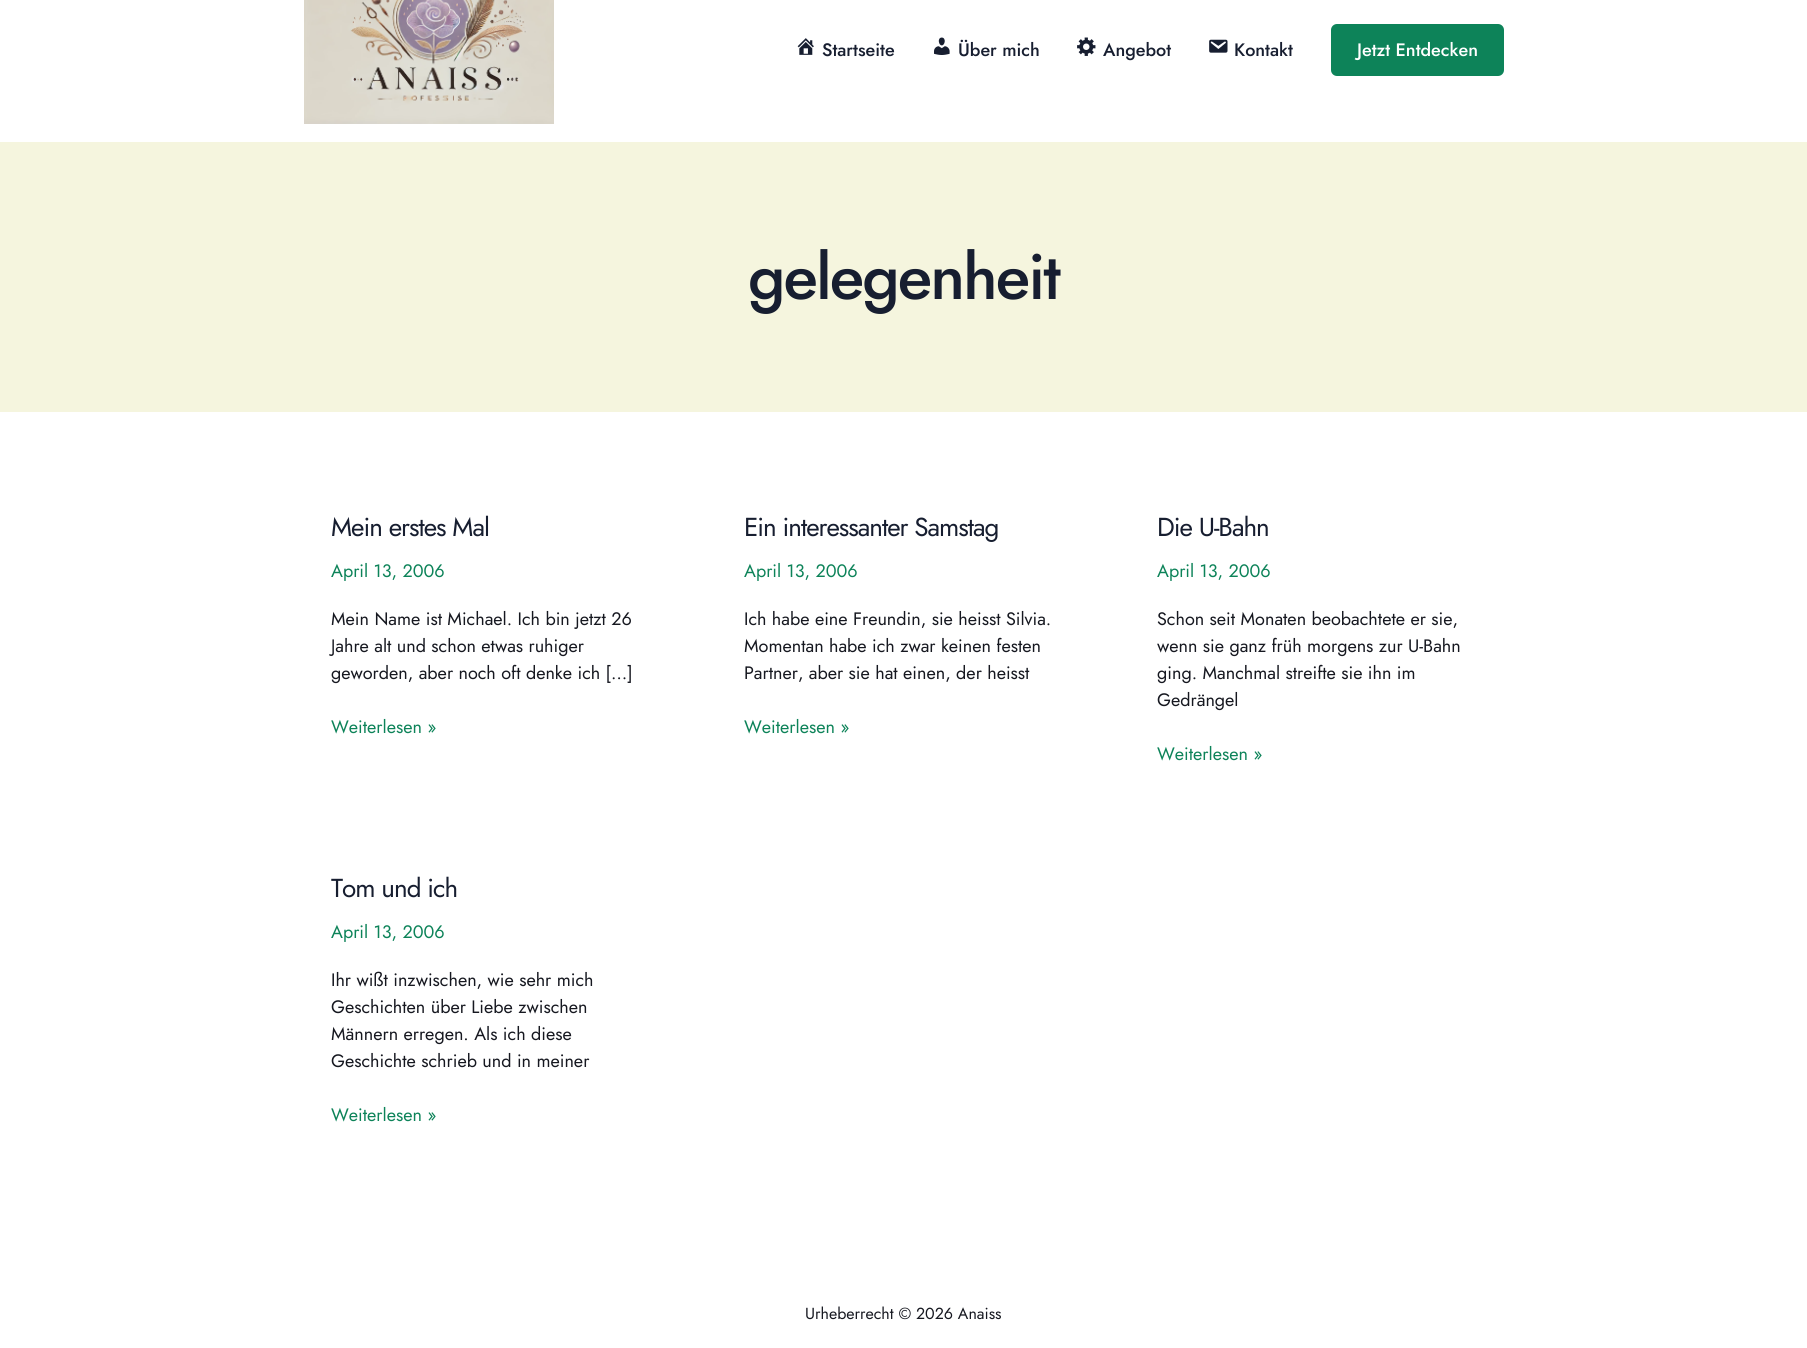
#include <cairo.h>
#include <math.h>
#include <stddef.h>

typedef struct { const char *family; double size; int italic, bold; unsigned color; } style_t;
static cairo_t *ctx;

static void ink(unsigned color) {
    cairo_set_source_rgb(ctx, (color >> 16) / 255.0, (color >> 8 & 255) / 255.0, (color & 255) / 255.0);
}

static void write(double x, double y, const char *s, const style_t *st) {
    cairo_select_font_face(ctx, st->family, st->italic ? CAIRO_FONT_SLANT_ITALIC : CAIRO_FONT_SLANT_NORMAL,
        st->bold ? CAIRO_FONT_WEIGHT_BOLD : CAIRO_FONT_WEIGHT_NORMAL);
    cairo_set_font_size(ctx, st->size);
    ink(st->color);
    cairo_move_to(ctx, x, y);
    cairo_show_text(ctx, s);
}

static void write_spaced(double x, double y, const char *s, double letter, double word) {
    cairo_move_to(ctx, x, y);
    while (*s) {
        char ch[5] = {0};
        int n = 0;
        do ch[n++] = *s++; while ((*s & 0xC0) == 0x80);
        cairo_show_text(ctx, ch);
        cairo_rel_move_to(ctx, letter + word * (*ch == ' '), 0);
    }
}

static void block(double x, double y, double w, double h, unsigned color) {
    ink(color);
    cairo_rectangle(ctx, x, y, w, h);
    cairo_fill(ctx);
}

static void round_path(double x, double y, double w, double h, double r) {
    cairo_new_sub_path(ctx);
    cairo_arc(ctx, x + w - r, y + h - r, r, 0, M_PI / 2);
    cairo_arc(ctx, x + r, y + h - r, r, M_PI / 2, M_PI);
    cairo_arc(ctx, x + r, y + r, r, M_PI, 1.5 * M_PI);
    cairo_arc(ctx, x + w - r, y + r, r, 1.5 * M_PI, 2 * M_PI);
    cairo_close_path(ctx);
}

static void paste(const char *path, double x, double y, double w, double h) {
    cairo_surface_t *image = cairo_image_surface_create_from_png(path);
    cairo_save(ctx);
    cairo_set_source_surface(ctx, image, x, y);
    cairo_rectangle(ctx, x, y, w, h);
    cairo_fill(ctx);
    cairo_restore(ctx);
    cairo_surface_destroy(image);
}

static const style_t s1 = {"Jost Medium", 18, 0, 0, 0x171e30};
static const style_t s2 = {"Jost Medium", 18, 0, 0, 0xffffff};
static const style_t s3 = {"Jost", 18, 0, 0, 0x0d8359};
static const style_t s4 = {"Jost", 18, 0, 0, 0x161820};
static const style_t s5 = {"Jost", 16, 0, 0, 0x161820};

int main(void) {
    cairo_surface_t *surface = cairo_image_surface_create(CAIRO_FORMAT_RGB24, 1807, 1348);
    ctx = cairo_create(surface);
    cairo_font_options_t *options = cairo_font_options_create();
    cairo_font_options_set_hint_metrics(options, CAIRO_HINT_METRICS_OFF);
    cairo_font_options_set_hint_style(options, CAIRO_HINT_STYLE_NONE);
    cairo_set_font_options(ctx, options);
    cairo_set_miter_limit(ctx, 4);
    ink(0xffffff);
    cairo_paint(ctx);
    paste("pic1.png", 304, 0, 250, 124);
    paste("pic2.png", 797, 38, 17, 17);
    write(822, 56, "Startseite", &s1);
    paste("pic3.png", 934, 37, 16, 18);
    write(958, 56, "Über mich", &s1);
    paste("pic4.png", 1077, 37, 19, 19);
    write(1103, 56, "Angebot", &s1);
    paste("pic5.png", 1209, 39, 19, 14);
    write(1234, 56, "Kontakt", &s1);
    ink(0x0d8359);
    round_path(1332, 25, 171, 50, 5);
    cairo_fill_preserve(ctx);
    cairo_stroke(ctx);
    write(1357, 56, "Jetzt Entdecken", &s2);
    block(0, 142, 1807, 270, 0xf5f5de);
    cairo_set_font_size(ctx, 64);
    ink(0x171e30);
    write_spaced(748, 299, "gelegenheit", -2, 0);
    cairo_select_font_face(ctx, "Jost", CAIRO_FONT_SLANT_NORMAL, CAIRO_FONT_WEIGHT_NORMAL);
    cairo_set_font_size(ctx, 26);
    write_spaced(331, 536, "Mein erstes Mal", -1, 0);
    write(331, 577, "April 13, 2006", &s3);
    write(331, 625, "Mein Name ist Michael. Ich bin jetzt 26", &s4);
    write(331, 652, "Jahre alt und schon etwas ruhiger", &s4);
    write(331, 679, "geworden, aber noch oft denke ich […]", &s4);
    write(331, 733, "Weiterlesen »", &s3);
    cairo_set_font_size(ctx, 26);
    ink(0x171e30);
    write_spaced(744, 536, "Ein interessanter Samstag", -1, 0);
    write(744, 577, "April 13, 2006", &s3);
    write(744, 625, "Ich habe eine Freundin, sie heisst Silvia.", &s4);
    write(744, 652, "Momentan habe ich zwar keinen festen", &s4);
    write(744, 679, "Partner, aber sie hat einen, der heisst", &s4);
    write(744, 733, "Weiterlesen »", &s3);
    cairo_set_font_size(ctx, 26);
    ink(0x171e30);
    write_spaced(1157, 536, "Die U-Bahn", -1, 0);
    write(1157, 577, "April 13, 2006", &s3);
    write(1157, 625, "Schon seit Monaten beobachtete er sie,", &s4);
    write(1157, 652, "wenn sie ganz früh morgens zur U-Bahn", &s4);
    write(1157, 679, "ging. Manchmal streifte sie ihn im", &s4);
    write(1157, 706, "Gedrängel", &s4);
    write(1157, 760, "Weiterlesen »", &s3);
    cairo_set_font_size(ctx, 26);
    ink(0x171e30);
    write_spaced(331, 897, "Tom und ich", -1, 0);
    write(331, 938, "April 13, 2006", &s3);
    write(331, 986, "Ihr wißt inzwischen, wie sehr mich", &s4);
    write(331, 1013, "Geschichten über Liebe zwischen", &s4);
    write(331, 1040, "Männern erregen. Als ich diese", &s4);
    write(331, 1067, "Geschichte schrieb und in meiner", &s4);
    write(331, 1121, "Weiterlesen »", &s3);
    write(805, 1319, "Urheberrecht © 2026 Anaiss", &s5);
    cairo_surface_write_to_png(surface, "screenshot.png");
    cairo_font_options_destroy(options);
    cairo_destroy(ctx);
    cairo_surface_destroy(surface);
    return 0;
}
